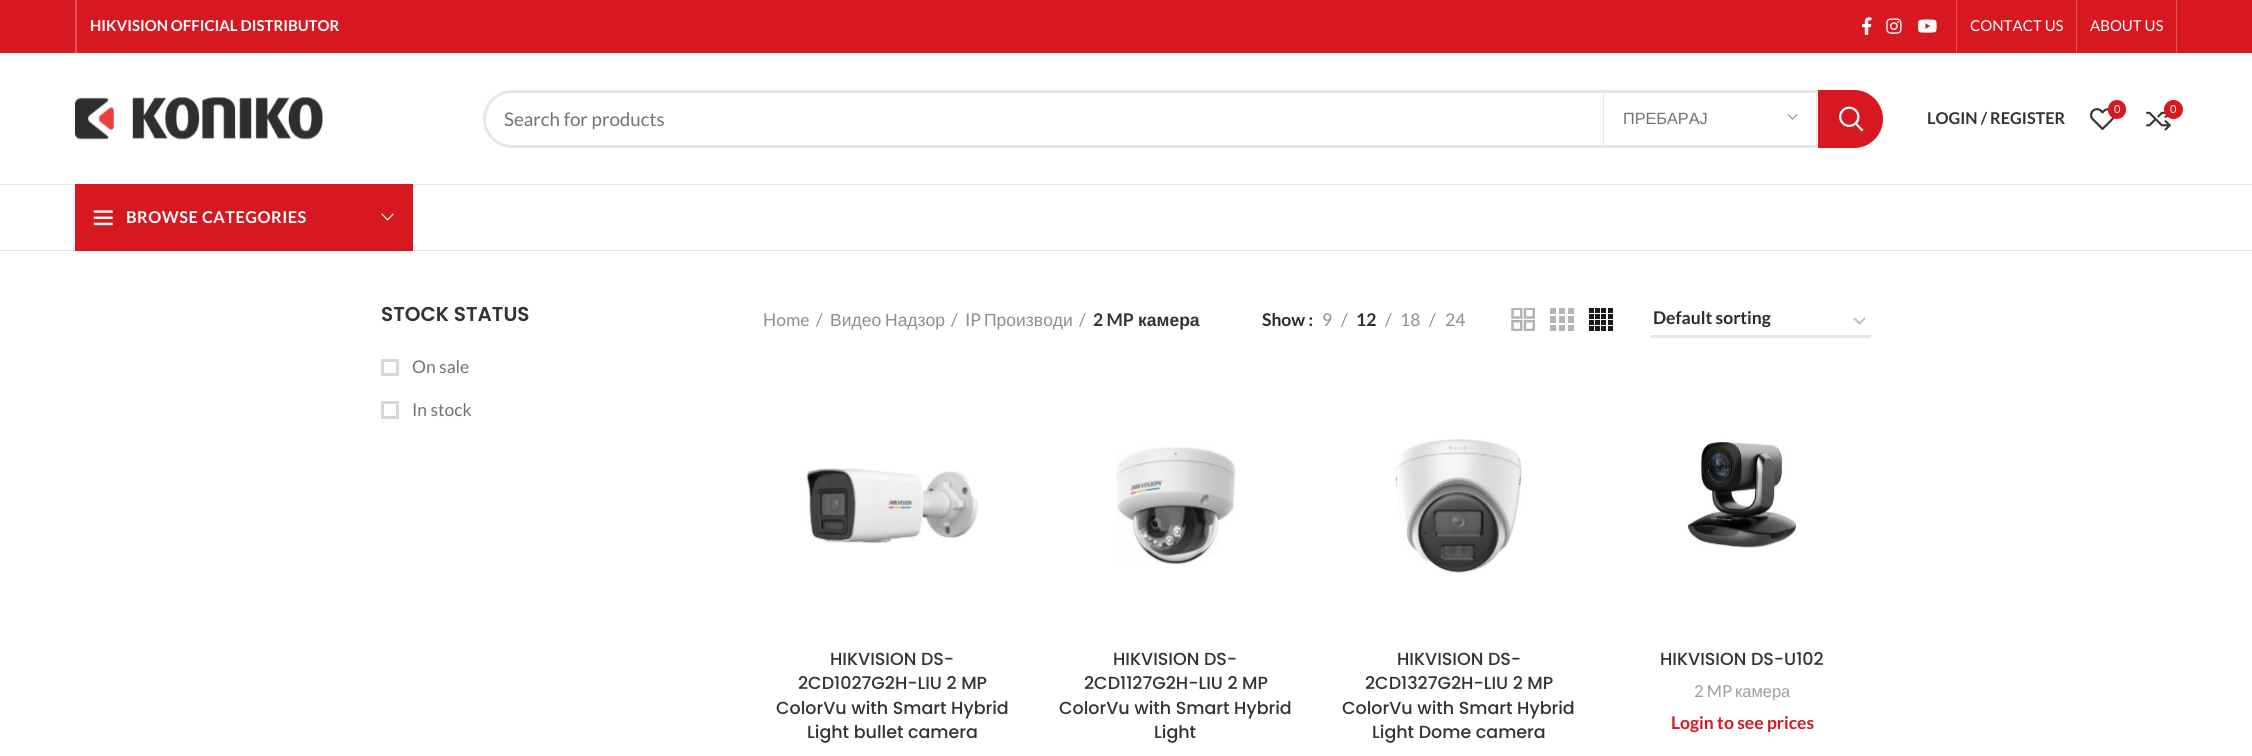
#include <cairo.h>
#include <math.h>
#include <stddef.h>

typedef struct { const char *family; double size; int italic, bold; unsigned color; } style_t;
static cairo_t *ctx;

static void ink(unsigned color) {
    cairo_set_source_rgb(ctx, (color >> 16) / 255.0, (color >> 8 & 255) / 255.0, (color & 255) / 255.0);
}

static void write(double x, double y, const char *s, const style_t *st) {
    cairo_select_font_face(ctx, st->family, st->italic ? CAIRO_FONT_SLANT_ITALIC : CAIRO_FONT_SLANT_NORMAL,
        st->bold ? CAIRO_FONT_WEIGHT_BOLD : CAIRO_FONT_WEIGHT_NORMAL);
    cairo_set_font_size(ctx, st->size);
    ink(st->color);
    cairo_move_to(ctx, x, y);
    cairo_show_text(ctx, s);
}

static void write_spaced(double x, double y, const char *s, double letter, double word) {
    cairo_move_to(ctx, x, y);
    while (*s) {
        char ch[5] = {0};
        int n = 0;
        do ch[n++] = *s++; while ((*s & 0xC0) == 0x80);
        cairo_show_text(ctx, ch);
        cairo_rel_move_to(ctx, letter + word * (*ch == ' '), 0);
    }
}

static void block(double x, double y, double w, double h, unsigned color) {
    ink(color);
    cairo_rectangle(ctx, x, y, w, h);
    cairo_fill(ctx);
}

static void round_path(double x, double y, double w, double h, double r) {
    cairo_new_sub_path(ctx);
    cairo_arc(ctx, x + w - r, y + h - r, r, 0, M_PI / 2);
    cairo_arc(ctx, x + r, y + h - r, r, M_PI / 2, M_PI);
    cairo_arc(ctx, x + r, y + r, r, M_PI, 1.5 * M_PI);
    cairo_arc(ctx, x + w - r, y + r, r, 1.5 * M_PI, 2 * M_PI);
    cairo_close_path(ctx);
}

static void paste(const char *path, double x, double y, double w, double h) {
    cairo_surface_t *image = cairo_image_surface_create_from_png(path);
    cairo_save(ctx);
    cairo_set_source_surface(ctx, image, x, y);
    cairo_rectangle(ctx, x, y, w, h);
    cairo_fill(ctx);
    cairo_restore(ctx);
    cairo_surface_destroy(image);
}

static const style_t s1 = {"Lato", 15, 0, 1, 0xffffff};
static const style_t s2 = {"Lato", 15, 0, 0, 0xffffff};
static const style_t s3 = {"Lato", 18.75, 0, 0, 0x727272};
static const style_t s4 = {"Liberation Sans", 16.25, 0, 0, 0x727272};
static const style_t s5 = {"Lato", 11, 0, 0, 0xffffff};
static const style_t s6 = {"Lato", 16.25, 0, 1, 0x333333};
static const style_t s7 = {"Poppins SemiBold", 20, 0, 0, 0x333333};
static const style_t s8 = {"Lato", 17.5, 0, 0, 0x727272};
static const style_t s9 = {"Lato", 17.5, 0, 0, 0x8e8e8e};
static const style_t s10 = {"Liberation Sans", 17.5, 0, 0, 0x8e8e8e};
static const style_t s11 = {"Lato", 17.5, 0, 1, 0x333333};
static const style_t s12 = {"Liberation Sans", 17.5, 0, 1, 0x333333};
static const style_t s13 = {"Lato", 17.5, 0, 1, 0x2d2a2a};
static const style_t s14 = {"Poppins Medium", 17.5, 0, 0, 0x333333};
static const style_t s15 = {"Lato", 16.5, 0, 0, 0x9e9e9e};
static const style_t s16 = {"Liberation Sans", 16.5, 0, 0, 0x9e9e9e};
static const style_t s17 = {"Lato", 17.5, 0, 1, 0xd71820};

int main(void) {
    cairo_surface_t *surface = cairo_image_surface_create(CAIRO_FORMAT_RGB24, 2252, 756);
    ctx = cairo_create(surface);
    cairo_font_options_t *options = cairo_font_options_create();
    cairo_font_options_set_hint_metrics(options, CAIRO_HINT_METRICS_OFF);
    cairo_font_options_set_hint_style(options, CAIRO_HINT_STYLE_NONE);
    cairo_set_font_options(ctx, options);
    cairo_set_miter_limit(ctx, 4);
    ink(0xffffff);
    cairo_paint(ctx);
    block(0, 0, 2252, 53, 0xd71820);
    block(75, 0, 2, 53, 0xe15258);
    write(90, 31, "HIKVISION OFFICIAL DISTRIBUTOR", &s1);
    paste("pic1.png", 1862, 17, 10, 18);
    paste("pic2.png", 1886, 18, 16, 16);
    paste("pic3.png", 1918, 19, 19, 14);
    block(1956, 0, 1, 53, 0xe15258);
    write(1970, 31, "CONTACT US", &s2);
    block(2076, 0, 1, 53, 0xe15258);
    write(2090, 31, "ABOUT US", &s2);
    block(2176, 0, 1, 53, 0xe15258);
    block(0, 184, 2252, 1, 0xe8e8e8);
    paste("pic4.png", 75, 97, 248, 43);
    round_path(484.5, 91.5, 1397, 55, 27.5);
    ink(0xe6e6e6);
    cairo_set_line_width(ctx, 3);
    cairo_stroke(ctx);
    write(504, 126, "Search for products", &s3);
    block(1816, 93, 1, 52, 0xe6e6e6);
    block(1603, 93, 1, 52, 0xe6e6e6);
    write(1623, 124, "ПРЕБАРАЈ", &s4);
    paste("pic5.png", 1787, 114, 11, 6);
    ink(0xd71820);
    cairo_new_path(ctx);
    cairo_move_to(ctx, 1818, 90);
    cairo_line_to(ctx, 1854, 90);
    cairo_curve_to(ctx, 1870, 90, 1883, 103, 1883, 119);
    cairo_curve_to(ctx, 1883, 135, 1870, 148, 1854, 148);
    cairo_line_to(ctx, 1818, 148);
    cairo_close_path(ctx);
    cairo_fill(ctx);
    paste("pic6.png", 1839, 106, 25, 26);
    paste("pic7.png", 2090, 108, 25, 22);
    round_path(2108, 100, 18, 19, 9);
    cairo_fill(ctx);
    write(2114, 113, "0", &s5);
    paste("pic8.png", 2146, 108, 26, 23);
    ink(0xd71820);
    cairo_arc(ctx, 2173.5, 109.5, 9.5, 0, 2 * M_PI);
    cairo_fill(ctx);
    write(2170, 113, "0", &s5);
    write(1927, 124, "LOGIN / REGISTER", &s6);
    block(0, 250, 2252, 1, 0xe8e8e8);
    block(75, 184, 338, 67, 0xd71820);
    paste("pic9.png", 93, 210, 20, 16);
    ink(0xffffff);
    write_spaced(126, 223, "BROWSE CATEGORIES", 0.5, 0);
    paste("pic10.png", 381, 213, 13, 8);
    write(381, 321, "STOCK STATUS", &s7);
    cairo_rectangle(ctx, 382.5, 360.5, 15, 14);
    ink(0xd8d8d8);
    cairo_stroke(ctx);
    write(412, 373, "On sale", &s8);
    cairo_rectangle(ctx, 382.5, 402.5, 15, 15);
    ink(0xd8d8d8);
    cairo_stroke(ctx);
    write(412, 416, "In stock", &s8);
    write(763, 326, "Home", &s9);
    write(816, 326, "/", &s9);
    cairo_select_font_face(ctx, "Liberation Sans", CAIRO_FONT_SLANT_NORMAL, CAIRO_FONT_WEIGHT_NORMAL);
    write_spaced(830, 326, "Видео Надзор", 0, -1);
    write(951, 326, "/", &s9);
    write(965, 326, "IP", &s9);
    write(984, 326, "Производи", &s10);
    write(1079, 326, "/", &s9);
    write(1093, 326, "2 MP", &s11);
    write(1138, 326, "камера", &s12);
    write(1262, 326, "Show :", &s13);
    write(1322, 326, "9", &s9);
    write(1341, 326, "/", &s9);
    write(1356, 326, "12", &s13);
    write(1385, 326, "/", &s9);
    write(1400, 326, "18", &s9);
    write(1429, 326, "/", &s9);
    write(1445, 326, "24", &s9);
    paste("pic11.png", 1511, 308, 24, 23);
    paste("pic12.png", 1550, 308, 24, 23);
    paste("pic13.png", 1589, 308, 24, 23);
    cairo_new_path(ctx);
    cairo_move_to(ctx, 1854, 318);
    cairo_line_to(ctx, 1859.5, 323.5);
    cairo_line_to(ctx, 1865, 318);
    ink(0xbbbbbb);
    cairo_set_line_width(ctx, 1.8);
    cairo_stroke(ctx);
    block(1650, 335, 221, 3, 0xe6e6e6);
    write(1653, 324, "Default sorting", &s13);
    paste("pic14.png", 806, 468, 172, 76);
    write(830, 665, "HIKVISION DS-", &s14);
    write(798, 689, "2CD1027G2H-LIU 2 MP", &s14);
    write(776, 714, "ColorVu with Smart Hybrid", &s14);
    write(807, 738, "Light bullet camera", &s14);
    paste("pic15.png", 1116, 446, 120, 120);
    write(1113, 665, "HIKVISION DS-", &s14);
    write(1084, 689, "2CD1127G2H-LIU 2 MP", &s14);
    write(1059, 714, "ColorVu with Smart Hybrid", &s14);
    write(1154, 738, "Light", &s14);
    paste("pic16.png", 1394, 439, 128, 134);
    write(1397, 665, "HIKVISION DS-", &s14);
    write(1365, 689, "2CD1327G2H-LIU 2 MP", &s14);
    write(1342, 714, "ColorVu with Smart Hybrid", &s14);
    write(1372, 738, "Light Dome camera", &s14);
    paste("pic17.png", 1687, 439, 111, 110);
    write(1660, 665, "HIKVISION DS-U102", &s14);
    write(1694, 697, "2 MP", &s15);
    write(1735, 697, "камера", &s16);
    write(1671, 729, "Login to see prices", &s17);
    cairo_surface_write_to_png(surface, "screenshot.png");
    cairo_font_options_destroy(options);
    cairo_destroy(ctx);
    cairo_surface_destroy(surface);
    return 0;
}
